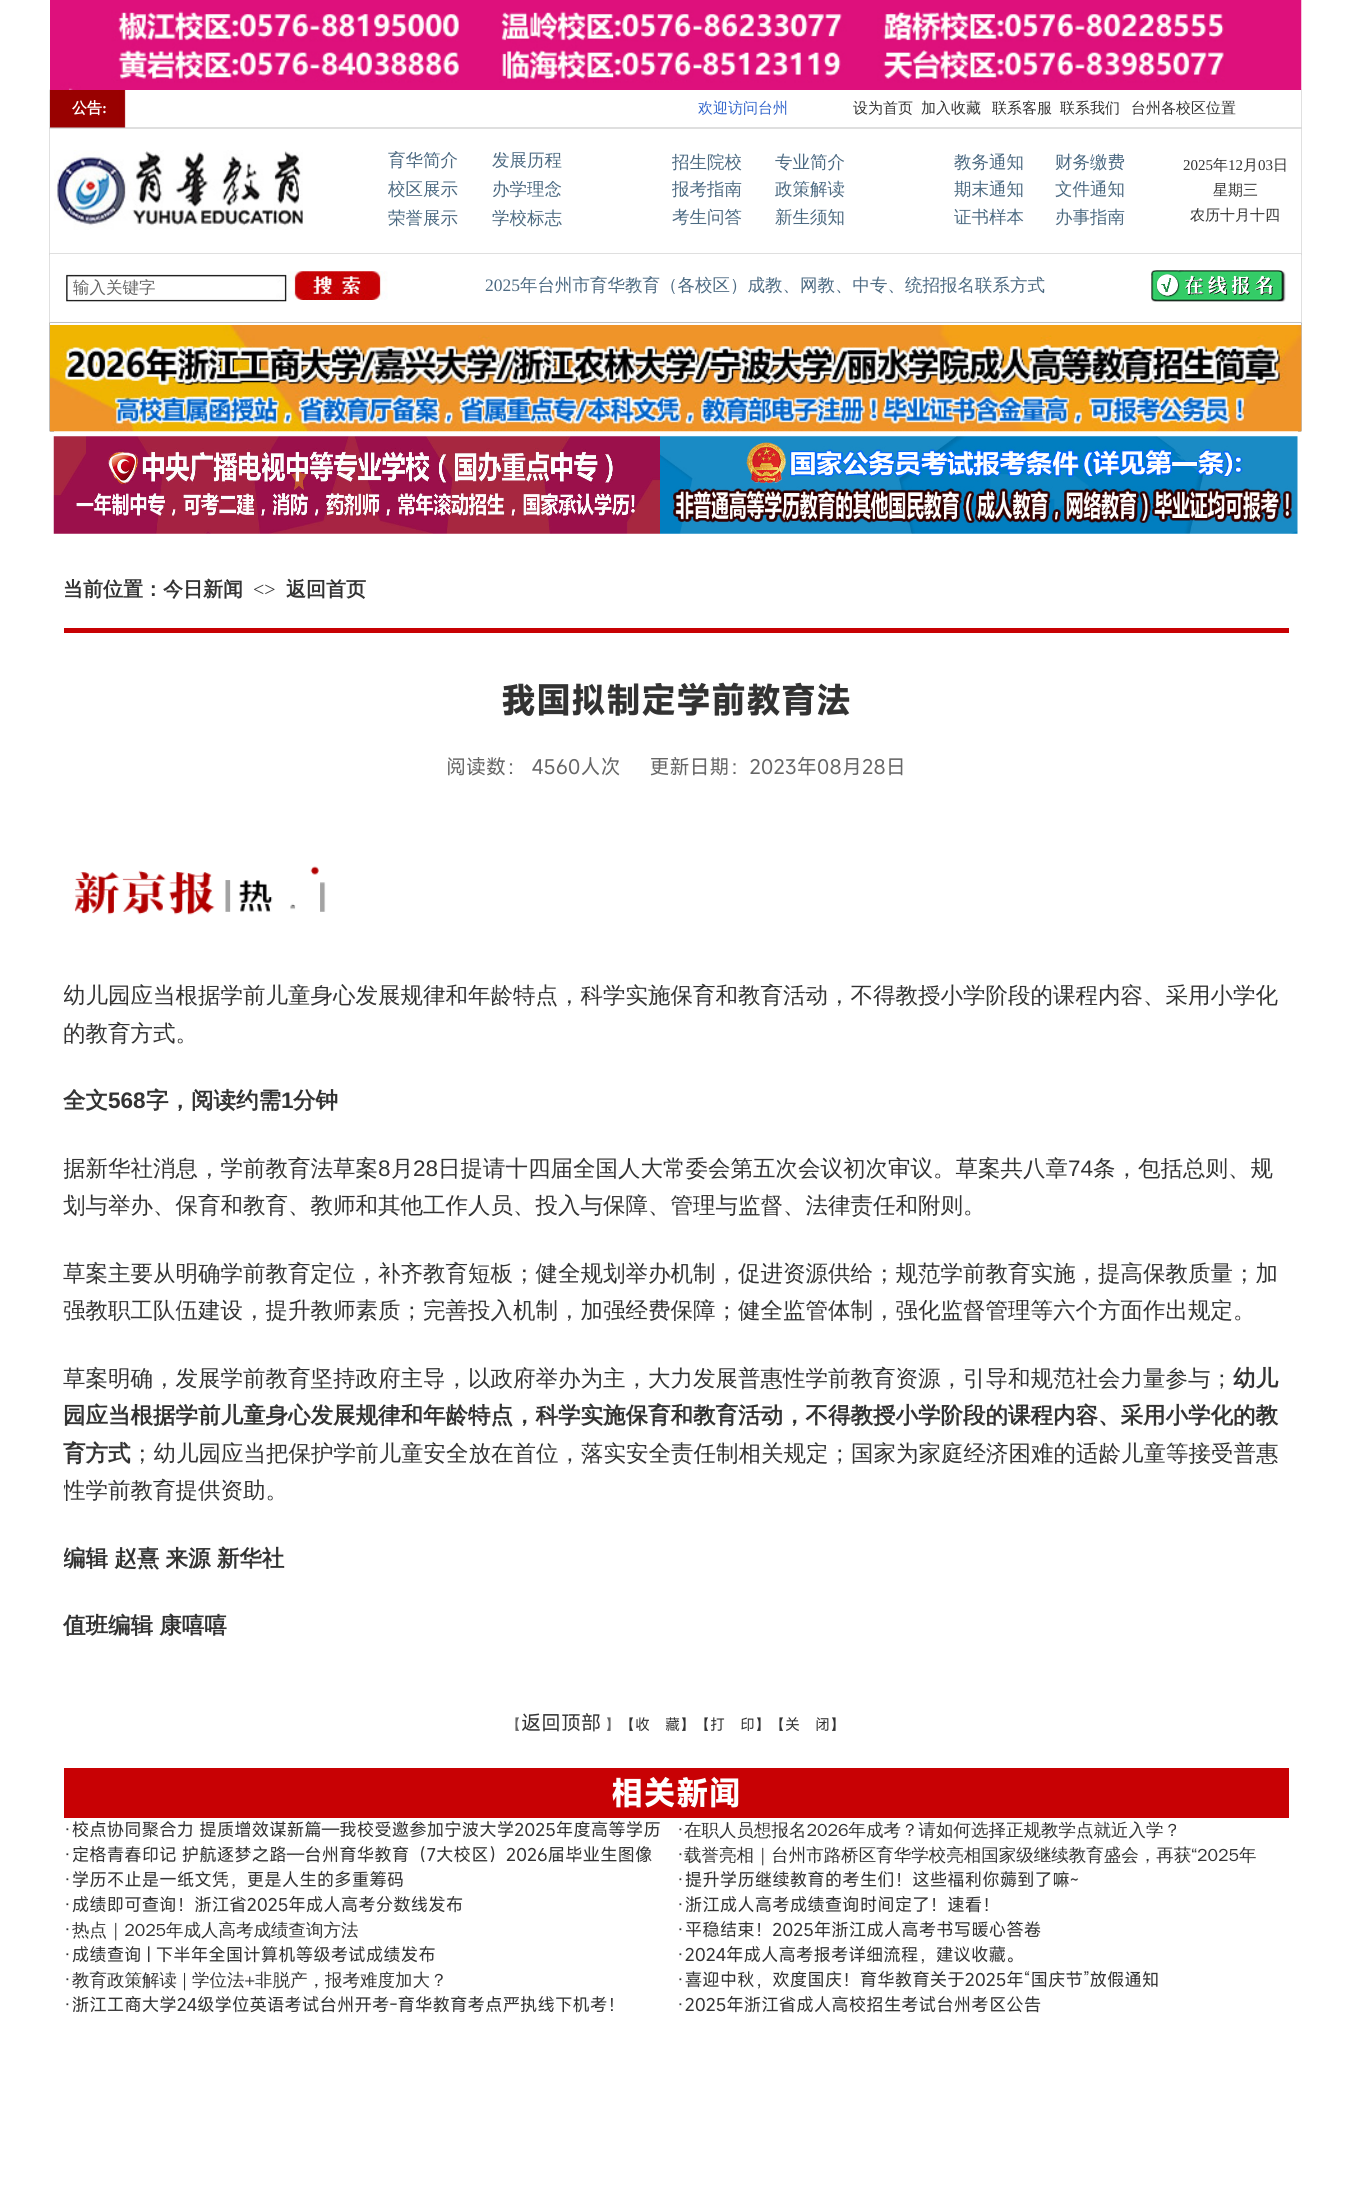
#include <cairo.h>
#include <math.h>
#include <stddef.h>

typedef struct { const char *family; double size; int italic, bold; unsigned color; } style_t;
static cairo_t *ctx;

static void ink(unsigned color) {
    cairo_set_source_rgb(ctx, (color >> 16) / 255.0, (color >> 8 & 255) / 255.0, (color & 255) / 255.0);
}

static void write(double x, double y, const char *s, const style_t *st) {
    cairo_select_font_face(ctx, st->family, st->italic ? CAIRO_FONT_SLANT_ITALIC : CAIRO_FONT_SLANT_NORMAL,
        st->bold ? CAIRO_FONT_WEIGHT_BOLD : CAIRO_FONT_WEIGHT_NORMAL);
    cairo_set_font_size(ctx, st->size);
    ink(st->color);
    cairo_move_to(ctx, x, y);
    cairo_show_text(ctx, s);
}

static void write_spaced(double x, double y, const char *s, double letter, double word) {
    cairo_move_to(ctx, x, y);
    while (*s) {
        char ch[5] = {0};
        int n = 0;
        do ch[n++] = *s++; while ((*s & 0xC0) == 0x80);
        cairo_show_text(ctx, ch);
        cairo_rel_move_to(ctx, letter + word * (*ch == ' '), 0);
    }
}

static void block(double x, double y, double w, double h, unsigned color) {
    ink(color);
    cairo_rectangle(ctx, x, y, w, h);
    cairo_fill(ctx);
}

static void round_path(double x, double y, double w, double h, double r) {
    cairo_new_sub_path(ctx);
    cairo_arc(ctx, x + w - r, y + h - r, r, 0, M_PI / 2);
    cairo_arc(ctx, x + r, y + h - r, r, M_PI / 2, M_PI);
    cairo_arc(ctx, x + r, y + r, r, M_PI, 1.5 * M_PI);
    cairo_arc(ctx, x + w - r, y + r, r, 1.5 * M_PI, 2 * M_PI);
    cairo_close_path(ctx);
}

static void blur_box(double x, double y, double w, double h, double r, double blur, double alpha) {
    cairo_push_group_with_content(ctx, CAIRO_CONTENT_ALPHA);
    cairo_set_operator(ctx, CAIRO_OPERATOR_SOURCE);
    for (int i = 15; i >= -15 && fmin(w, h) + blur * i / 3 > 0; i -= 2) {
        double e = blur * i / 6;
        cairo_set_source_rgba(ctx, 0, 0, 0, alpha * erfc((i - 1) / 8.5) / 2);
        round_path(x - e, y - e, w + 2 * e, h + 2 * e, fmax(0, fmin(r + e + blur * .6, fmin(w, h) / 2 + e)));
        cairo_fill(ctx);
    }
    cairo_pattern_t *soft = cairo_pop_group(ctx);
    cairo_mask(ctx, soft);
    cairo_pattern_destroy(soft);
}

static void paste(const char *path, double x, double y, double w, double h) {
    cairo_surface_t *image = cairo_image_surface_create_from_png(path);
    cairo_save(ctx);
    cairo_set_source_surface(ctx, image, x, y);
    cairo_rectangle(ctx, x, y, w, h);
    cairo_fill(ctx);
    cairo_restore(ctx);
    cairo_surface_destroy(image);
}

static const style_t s1 = {"WenQuanYi Zen Hei", 15, 0, 1, 0xffffff};
static const style_t s2 = {"Liberation Serif", 15, 0, 1, 0xffffff};
static const style_t s3 = {"WenQuanYi Zen Hei Medium", 15, 0, 0, 0x3366cc};
static const style_t s4 = {"WenQuanYi Zen Hei Medium", 15, 0, 0, 0x333333};
static const style_t s5 = {"WenQuanYi Zen Hei Medium", 17.5, 0, 0, 0x4c6a82};
static const style_t s6 = {"Liberation Serif", 15, 0, 0, 0x333333};
static const style_t s7 = {"WenQuanYi Zen Hei Medium", 16.5, 0, 0, 0x666666};
static const style_t s8 = {"Liberation Serif", 17.5, 0, 0, 0x4c6a82};
static const style_t s9 = {"WenQuanYi Zen Hei", 20, 0, 1, 0x333333};
static const style_t s10 = {"Liberation Serif", 20, 0, 0, 0x333333};
static const style_t s11 = {"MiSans", 35, 0, 1, 0x333333};
static const style_t s12 = {"MiSans", 20, 0, 0, 0x666666};
static const style_t s13 = {"WenQuanYi Zen Hei Medium", 22.5, 0, 0, 0x333333};
static const style_t s14 = {"WenQuanYi Zen Hei", 22.5, 0, 1, 0x333333};
static const style_t s15 = {"Liberation Sans", 22.5, 0, 1, 0x333333};
static const style_t s16 = {"Liberation Sans", 22.5, 0, 0, 0x333333};
static const style_t s17 = {"MiSans", 15, 0, 0, 0x666666};
static const style_t s18 = {"MiSans", 20, 0, 0, 0x333333};
static const style_t s19 = {"MiSans", 15, 0, 0, 0x333333};
static const style_t s20 = {"MiSans", 32.5, 0, 1, 0xffffff};
static const style_t s21 = {"MiSans", 17.5, 0, 0, 0x333333};
static const style_t s22 = {"WenQuanYi Zen Hei Medium", 17.5, 0, 0, 0x333333};

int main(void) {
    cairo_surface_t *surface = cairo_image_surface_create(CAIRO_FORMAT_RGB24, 1351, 2190);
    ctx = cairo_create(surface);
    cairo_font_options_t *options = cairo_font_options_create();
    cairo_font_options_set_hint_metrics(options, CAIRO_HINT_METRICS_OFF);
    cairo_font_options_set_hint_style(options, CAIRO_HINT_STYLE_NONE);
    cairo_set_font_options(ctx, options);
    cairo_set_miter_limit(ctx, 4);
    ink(0xffffff);
    cairo_paint(ctx);
    ink(0x000000);
    blur_box(50, 90, 1251, 38, 0, 0.5, 0.5);
    paste("pic1.png", 50, 0, 1252, 90);
    block(50, 90, 1251, 38, 0xffffff);
    paste("pic2.png", 50, 90, 76, 38);
    write(72, 113, "公告", &s1);
    write(102, 113, ":", &s2);
    write(698, 113, "欢迎访问台州", &s3);
    write(853, 113, "设为首页", &s4);
    write(921, 113, "加入收藏", &s4);
    write(992, 113, "联系客服", &s4);
    write(1060, 113, "联系我们", &s4);
    write(1131, 113, "台州各校区位置", &s4);
    cairo_save(ctx);
    cairo_set_fill_rule(ctx, CAIRO_FILL_RULE_EVEN_ODD);
    cairo_new_path(ctx);
    cairo_move_to(ctx, 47, 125);
    cairo_line_to(ctx, 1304, 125);
    cairo_line_to(ctx, 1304, 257);
    cairo_line_to(ctx, 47, 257);
    cairo_close_path(ctx);
    cairo_move_to(ctx, 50, 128);
    cairo_line_to(ctx, 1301, 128);
    cairo_line_to(ctx, 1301, 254);
    cairo_line_to(ctx, 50, 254);
    cairo_close_path(ctx);
    cairo_clip(ctx);
    ink(0x000000);
    blur_box(50, 128, 1251, 126, 0, 0.5, 0.5);
    cairo_restore(ctx);
    paste("pic3.png", 54, 150, 249, 80);
    write(388, 166, "育华简介", &s5);
    write(492, 166, "发展历程", &s5);
    write(388, 195, "校区展示", &s5);
    write(492, 195, "办学理念", &s5);
    write(388, 224, "荣誉展示", &s5);
    write(492, 224, "学校标志", &s5);
    write(672, 168, "招生院校", &s5);
    write(775, 168, "专业简介", &s5);
    write(672, 195, "报考指南", &s5);
    write(775, 195, "政策解读", &s5);
    write(672, 223, "考生问答", &s5);
    write(775, 223, "新生须知", &s5);
    write(954, 168, "教务通知", &s5);
    write(1055, 168, "财务缴费", &s5);
    write(954, 195, "期末通知", &s5);
    write(1055, 195, "文件通知", &s5);
    write(954, 223, "证书样本", &s5);
    write(1055, 223, "办事指南", &s5);
    write(1183, 170, "2025", &s6);
    write(1213, 170, "年", &s4);
    write(1228, 170, "12", &s6);
    write(1243, 170, "月", &s4);
    write(1258, 170, "03", &s6);
    write(1273, 170, "日", &s4);
    write(1213, 195, "星期三", &s4);
    write(1190, 220, "农历十月十四", &s4);
    ink(0x000000);
    blur_box(50, 254, 1251, 69, 0, 0.5, 0.5);
    block(50, 254, 1251, 69, 0xffffff);
    paste("pic4.png", 66, 274, 221, 28);
    write(73, 293, "输入关键字", &s7);
    paste("pic5.png", 287, 271, 101, 29);
    write(485, 291, "2025", &s8);
    write(520, 291, "年台州市育华教育（各校区）成教、网教、中专、统招报名联系方式", &s5);
    paste("pic6.png", 1151, 270, 135, 32);
    ink(0x000000);
    blur_box(50, 323, 1251, 108, 0, 0.5, 1);
    block(50, 323, 1251, 2, 0xffffff);
    block(54, 431, 1244, 1, 0xffffff);
    paste("pic7.png", 50, 325, 1252, 107);
    paste("pic8.png", 53, 436, 607, 98);
    paste("pic9.png", 660, 436, 638, 98);
    write(63, 596, "当前位置：今日新闻", &s9);
    write(253, 596, "<>", &s10);
    write(286, 596, "返回首页", &s9);
    block(64, 628, 1225, 5, 0xc80104);
    write(501, 713, "我国拟制定学前教育法", &s11);
    write(446, 774, "阅读数： 4560人次     更新日期：2023年08月28日", &s12);
    paste("pic10.png", 74, 866, 252, 49);
    cairo_save(ctx);
    cairo_rectangle(ctx, 64, 978, 1225, 75);
    cairo_clip(ctx);
    write(63, 1003, "幼儿园应当根据学前儿童身心发展规律和年龄特点，科学实施保育和教育活动，不得教授小学阶段的课程内容、采用小学化", &s13);
    cairo_restore(ctx);
    write(63, 1041, "的教育方式。", &s13);
    write(63, 1108, "全文", &s14);
    write(108, 1108, "568", &s15);
    write(146, 1108, "字，阅读约需", &s14);
    write(281, 1108, "1", &s15);
    write(293, 1108, "分钟", &s14);
    cairo_save(ctx);
    cairo_rectangle(ctx, 64, 1150, 1225, 75);
    cairo_clip(ctx);
    write(63, 1176, "据新华社消息，学前教育法草案", &s13);
    cairo_restore(ctx);
    write(378, 1176, "8", &s16);
    write(391, 1176, "月", &s13);
    write(413, 1176, "28", &s16);
    write(438, 1176, "日提请十四届全国人大常委会第五次会议初次审议。草案共八章", &s13);
    write(1068, 1176, "74", &s16);
    write(1093, 1176, "条，包括总则、规", &s13);
    write(63, 1213, "划与举办、保育和教育、教师和其他工作人员、投入与保障、管理与监督、法律责任和附则。", &s13);
    write(63, 1281, "草案主要从明确学前教育定位，补齐教育短板；健全规划举办机制，促进资源供给；规范学前教育实施，提高保教质量；加", &s13);
    write(63, 1318, "强教职工队伍建设，提升教师素质；完善投入机制，加强经费保障；健全监管体制，强化监督管理等六个方面作出规定。", &s13);
    write(63, 1386, "草案明确，发展学前教育坚持政府主导，以政府举办为主，大力发展普惠性学前教育资源，引导和规范社会力量参与；", &s13);
    write(1233, 1386, "幼儿", &s14);
    write(63, 1423, "园应当根据学前儿童身心发展规律和年龄特点，科学实施保育和教育活动，不得教授小学阶段的课程内容、采用小学化的教", &s14);
    write(63, 1461, "育方式", &s14);
    write(131, 1461, "；幼儿园应当把保护学前儿童安全放在首位，落实安全责任制相关规定；国家为家庭经济困难的适龄儿童等接受普惠", &s13);
    cairo_save(ctx);
    cairo_rectangle(ctx, 64, 1360, 1225, 150);
    cairo_clip(ctx);
    write(63, 1498, "性学前教育提供资助。", &s13);
    cairo_restore(ctx);
    cairo_save(ctx);
    cairo_rectangle(ctx, 64, 1540, 1225, 38);
    cairo_clip(ctx);
    cairo_select_font_face(ctx, "WenQuanYi Zen Hei", CAIRO_FONT_SLANT_NORMAL, CAIRO_FONT_WEIGHT_BOLD);
    write_spaced(63, 1566, "编辑 赵熹 来源 新华社", 0, -0.5);
    cairo_restore(ctx);
    cairo_select_font_face(ctx, "WenQuanYi Zen Hei", CAIRO_FONT_SLANT_NORMAL, CAIRO_FONT_WEIGHT_BOLD);
    write_spaced(63, 1633, "值班编辑 康嘻嘻", 0, -0.5);
    write(506, 1730, "【", &s17);
    write(521, 1730, "返回顶部", &s18);
    write(605, 1730, "】", &s17);
    write(620, 1730, "【收　藏】【打　印】【关　闭】", &s19);
    block(64, 1768, 1225, 50, 0xc80104);
    write(611, 1805, "相关新闻", &s20);
    write(63, 1836, "·校点协同聚合力 提质增效谋新篇—我校受邀参加宁波大学2025年度高等学历", &s21);
    write(63, 1861, "·定格青春印记 护航逐梦之路—台州育华教育（7大校区）2026届毕业生图像", &s21);
    write(63, 1886, "·学历不止是一纸文凭，更是人生的多重筹码", &s21);
    write(63, 1911, "·成绩即可查询！浙江省2025年成人高考分数线发布", &s21);
    write(63, 1936, "·", &s21);
    write(72, 1936, "热点｜2025年成人高考成绩查询方法", &s22);
    write(63, 1961, "·成绩查询 | 下半年全国计算机等级考试成绩发布", &s21);
    write(63, 1986, "·", &s21);
    write(72, 1986, "教育政策解读 | 学位法+非脱产，报考难度加大？", &s22);
    write(63, 2011, "·浙江工商大学24级学位英语考试台州开考-育华教育考点严执线下机考！", &s21);
    write(676, 1836, "·", &s21);
    write(684, 1836, "在职人员想报名2026年成考？请如何选择正规教学点就近入学？", &s22);
    write(676, 1861, "·", &s21);
    write(684, 1861, "载誉亮相｜台州市路桥区育华学校亮相国家级继续教育盛会，再获“2025年", &s22);
    write(676, 1886, "·提升学历继续教育的考生们！这些福利你薅到了嘛~", &s21);
    write(676, 1911, "·浙江成人高考成绩查询时间定了！速看！", &s21);
    write(676, 1936, "·平稳结束！2025年浙江成人高考书写暖心答卷", &s21);
    write(676, 1961, "·2024年成人高考报考详细流程，建议收藏。", &s21);
    write(676, 1986, "·喜迎中秋，欢度国庆！育华教育关于2025年“国庆节”放假通知", &s21);
    write(676, 2011, "·2025年浙江省成人高校招生考试台州考区公告", &s21);
    cairo_surface_write_to_png(surface, "screenshot.png");
    cairo_font_options_destroy(options);
    cairo_destroy(ctx);
    cairo_surface_destroy(surface);
    return 0;
}
